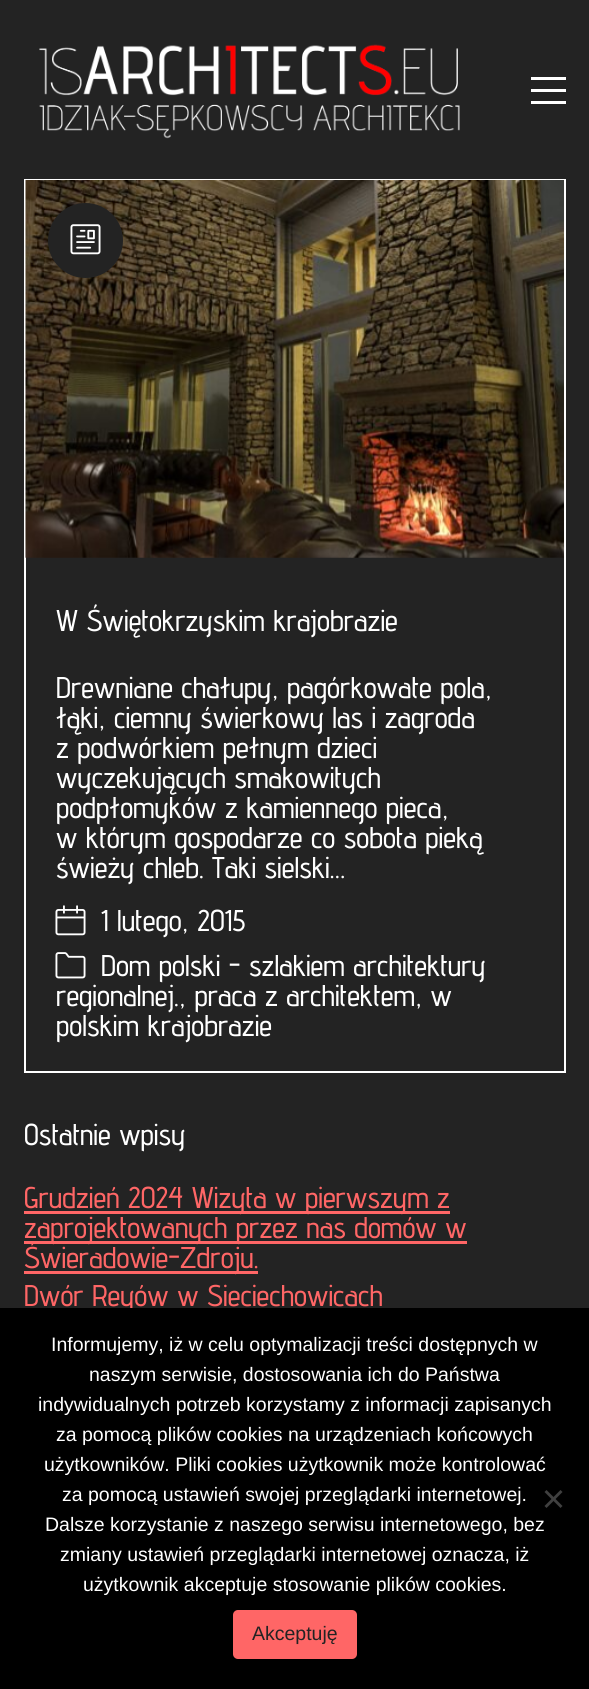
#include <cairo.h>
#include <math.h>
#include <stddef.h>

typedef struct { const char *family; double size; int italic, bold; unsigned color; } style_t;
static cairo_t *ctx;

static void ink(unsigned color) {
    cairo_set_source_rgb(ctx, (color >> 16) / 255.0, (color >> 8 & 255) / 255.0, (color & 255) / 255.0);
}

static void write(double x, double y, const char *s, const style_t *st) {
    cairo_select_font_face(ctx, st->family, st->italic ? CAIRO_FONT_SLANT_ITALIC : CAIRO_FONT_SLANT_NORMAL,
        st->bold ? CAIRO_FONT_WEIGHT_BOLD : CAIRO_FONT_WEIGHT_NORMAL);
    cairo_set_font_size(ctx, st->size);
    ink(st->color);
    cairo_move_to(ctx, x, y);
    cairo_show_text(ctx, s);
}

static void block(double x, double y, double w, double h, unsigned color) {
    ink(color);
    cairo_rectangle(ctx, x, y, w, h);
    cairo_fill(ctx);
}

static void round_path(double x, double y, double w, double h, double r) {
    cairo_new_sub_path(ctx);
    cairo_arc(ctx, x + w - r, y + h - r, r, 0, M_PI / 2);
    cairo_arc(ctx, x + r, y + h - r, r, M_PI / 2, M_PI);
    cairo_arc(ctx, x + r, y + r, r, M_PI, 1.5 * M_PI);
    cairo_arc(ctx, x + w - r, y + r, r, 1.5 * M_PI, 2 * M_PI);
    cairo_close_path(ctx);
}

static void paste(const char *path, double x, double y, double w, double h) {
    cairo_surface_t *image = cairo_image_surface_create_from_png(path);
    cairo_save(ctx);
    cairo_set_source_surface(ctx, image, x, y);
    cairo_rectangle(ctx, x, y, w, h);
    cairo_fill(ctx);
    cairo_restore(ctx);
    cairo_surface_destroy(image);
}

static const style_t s1 = {"Advent Pro Medium", 30, 0, 0, 0xffffff};
static const style_t s2 = {"Advent Pro Medium", 30, 0, 0, 0xff6666};
static const style_t s3 = {"Liberation Sans", 19.5, 0, 0, 0xffffff};
static const style_t s4 = {"Liberation Sans", 19.5, 0, 0, 0x232323};

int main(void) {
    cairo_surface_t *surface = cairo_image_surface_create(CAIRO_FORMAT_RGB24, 589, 1689);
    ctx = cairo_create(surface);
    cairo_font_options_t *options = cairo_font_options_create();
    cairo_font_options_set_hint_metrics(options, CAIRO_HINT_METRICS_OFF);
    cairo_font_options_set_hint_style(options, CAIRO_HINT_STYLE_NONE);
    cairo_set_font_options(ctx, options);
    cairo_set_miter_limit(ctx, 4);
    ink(0x232323);
    cairo_paint(ctx);
    paste("pic1.png", 39, 44, 421, 95);
    block(531, 77, 35, 3, 0xffffff);
    block(531, 89, 35, 3, 0xffffff);
    block(531, 101, 35, 3, 0xffffff);
    cairo_rectangle(ctx, 25, 180, 540, 892);
    cairo_stroke(ctx);
    paste("pic2.png", 25, 180, 539, 378);
    ink(0x232323);
    cairo_arc(ctx, 85.5, 240.5, 37.5, 0, 2 * M_PI);
    cairo_fill(ctx);
    paste("pic3.png", 70, 224, 31, 31);
    write(56, 631, "W Świętokrzyskim krajobrazie", &s1);
    write(56, 698, "Drewniane chałupy, pagórkowate pola,", &s1);
    write(56, 728, "łąki, ciemny świerkowy las i zagroda", &s1);
    write(56, 758, "z podwórkiem pełnym dzieci", &s1);
    write(56, 788, "wyczekujących smakowitych", &s1);
    write(56, 818, "podpłomyków z kamiennego pieca,", &s1);
    write(56, 848, "w którym gospodarze co sobota pieką", &s1);
    write(56, 878, "świeży chleb. Taki sielski…", &s1);
    paste("pic4.png", 55, 905, 31, 31);
    write(101, 931, "1 lutego, 2015", &s1);
    paste("pic5.png", 55, 952, 31, 27);
    write(101, 976, "Dom polski - szlakiem architektury", &s1);
    write(56, 1006, "regionalnej., praca z architektem, w", &s1);
    write(56, 1036, "polskim krajobrazie", &s1);
    write(24, 1145, "Ostatnie wpisy", &s1);
    block(24, 1211, 426, 3, 0xff6666);
    write(24, 1208, "Grudzień 2024 Wizyta w pierwszym z", &s2);
    block(24, 1241, 443, 3, 0xff6666);
    write(24, 1238, "zaprojektowanych przez nas domów w", &s2);
    block(24, 1271, 234, 3, 0xff6666);
    write(24, 1268, "Świeradowie-Zdroju.", &s2);
    write(24, 1306, "Dwór Reyów w Sieciechowicach", &s2);
    block(0, 1308, 589, 381, 0x000000);
    write(51, 1351, "Informujemy, iż w celu optymalizacji treści dostępnych w", &s3);
    write(89, 1381, "naszym serwisie, dostosowania ich do Państwa", &s3);
    write(38, 1411, "indywidualnych potrzeb korzystamy z informacji zapisanych", &s3);
    write(56, 1441, "za pomocą plików cookies na urządzeniach końcowych", &s3);
    write(44, 1471, "użytkowników. Pliki cookies użytkownik może kontrolować", &s3);
    write(62, 1501, "za pomocą ustawień swojej przeglądarki internetowej.", &s3);
    write(45, 1531, "Dalsze korzystanie z naszego serwisu internetowego, bez", &s3);
    write(60, 1561, "zmiany ustawień przeglądarki internetowej oznacza, iż", &s3);
    write(83, 1591, "użytkownik akceptuje stosowanie plików cookies.", &s3);
    ink(0x404040);
    cairo_new_path(ctx);
    cairo_move_to(ctx, 560.5, 1490);
    cairo_line_to(ctx, 562.5, 1492);
    cairo_line_to(ctx, 546.5, 1508);
    cairo_line_to(ctx, 544.5, 1506);
    cairo_close_path(ctx);
    cairo_fill(ctx);
    cairo_new_path(ctx);
    cairo_move_to(ctx, 544.5, 1492);
    cairo_line_to(ctx, 546.5, 1490);
    cairo_line_to(ctx, 562.5, 1506);
    cairo_line_to(ctx, 560.5, 1508);
    cairo_close_path(ctx);
    cairo_fill(ctx);
    ink(0xff6666);
    round_path(233, 1610, 124, 49, 5);
    cairo_fill(ctx);
    write(252, 1640, "Akceptuję", &s4);
    cairo_surface_write_to_png(surface, "screenshot.png");
    cairo_font_options_destroy(options);
    cairo_destroy(ctx);
    cairo_surface_destroy(surface);
    return 0;
}
